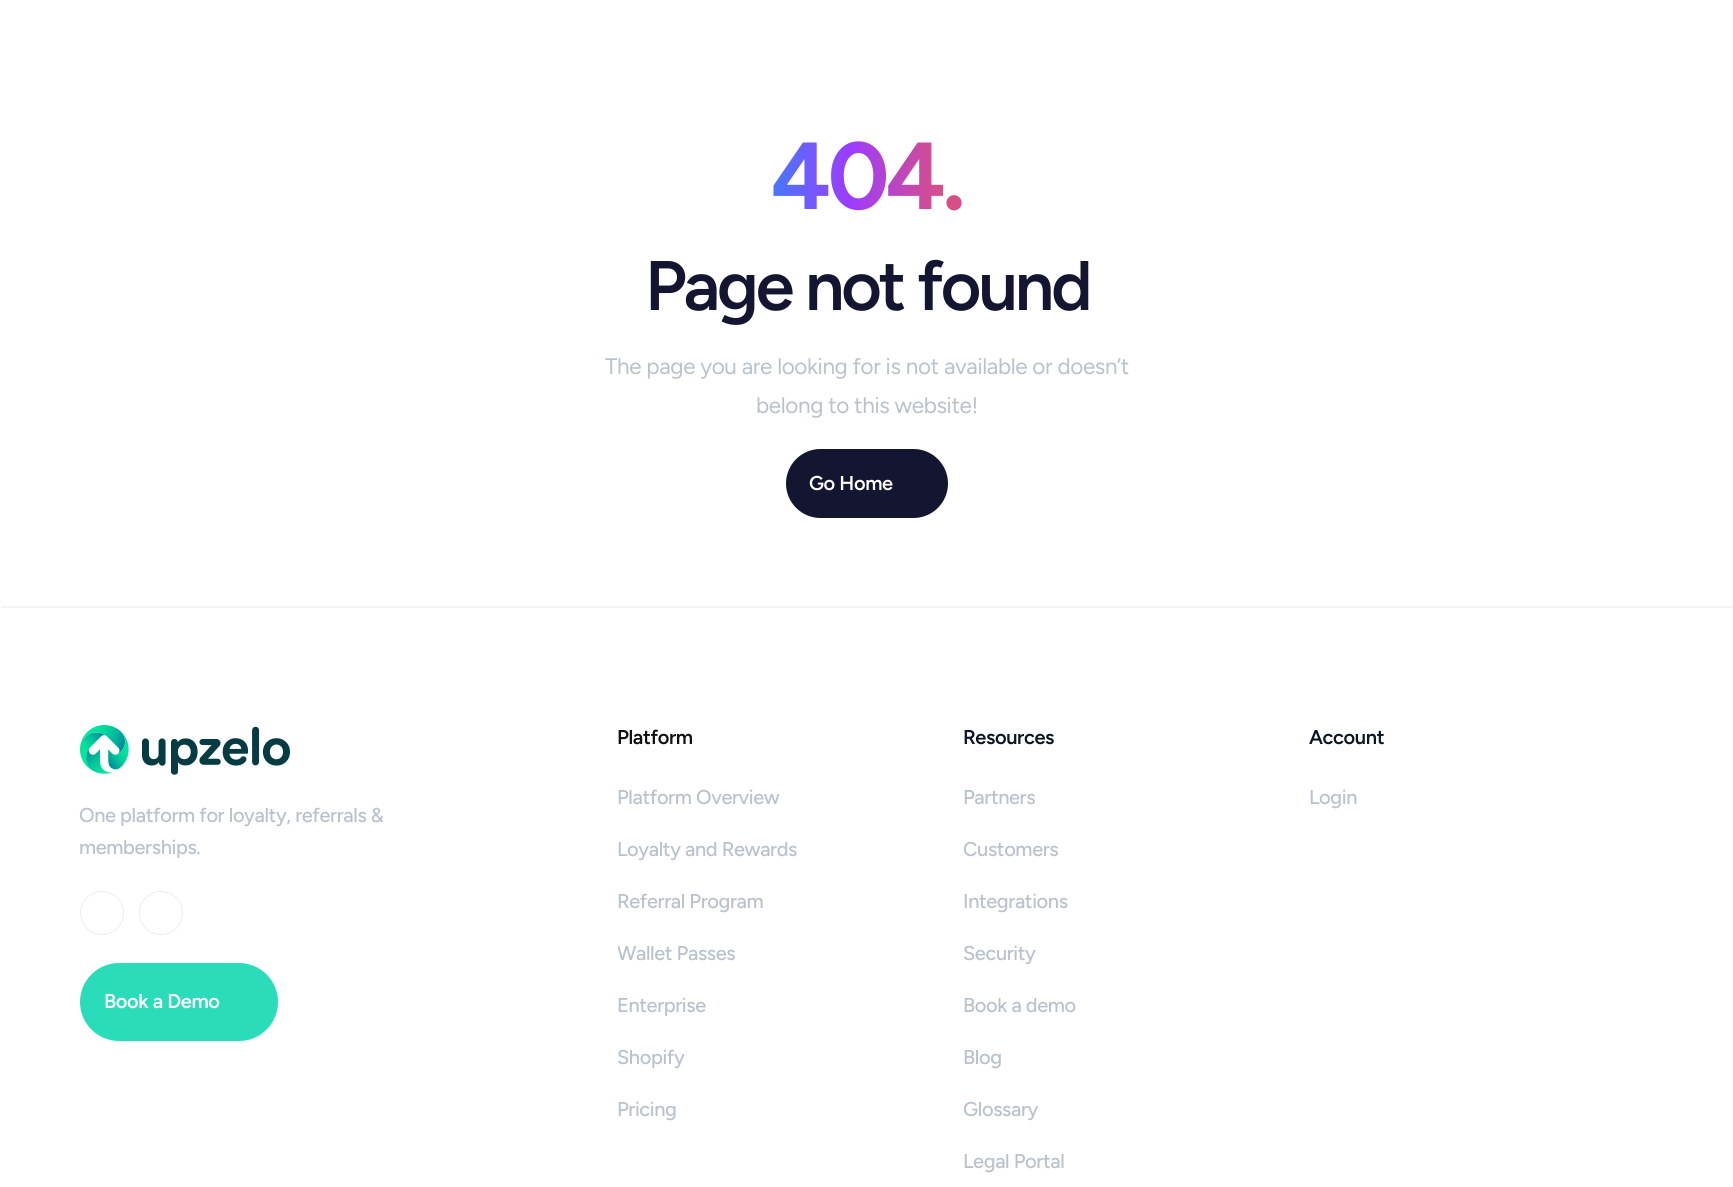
#include <cairo.h>
#include <math.h>
#include <stddef.h>

static cairo_t *ctx;

static void ink(unsigned color) {
    cairo_set_source_rgb(ctx, (color >> 16) / 255.0, (color >> 8 & 255) / 255.0, (color & 255) / 255.0);
}

static void write_spaced(double x, double y, const char *s, double letter, double word) {
    cairo_move_to(ctx, x, y);
    while (*s) {
        char ch[5] = {0};
        int n = 0;
        do ch[n++] = *s++; while ((*s & 0xC0) == 0x80);
        cairo_show_text(ctx, ch);
        cairo_rel_move_to(ctx, letter + word * (*ch == ' '), 0);
    }
}

static void round_path(double x, double y, double w, double h, double r) {
    cairo_new_sub_path(ctx);
    cairo_arc(ctx, x + w - r, y + h - r, r, 0, M_PI / 2);
    cairo_arc(ctx, x + r, y + h - r, r, M_PI / 2, M_PI);
    cairo_arc(ctx, x + r, y + r, r, M_PI, 1.5 * M_PI);
    cairo_arc(ctx, x + w - r, y + r, r, 1.5 * M_PI, 2 * M_PI);
    cairo_close_path(ctx);
}

static void paste(const char *path, double x, double y, double w, double h) {
    cairo_surface_t *image = cairo_image_surface_create_from_png(path);
    cairo_save(ctx);
    cairo_set_source_surface(ctx, image, x, y);
    cairo_rectangle(ctx, x, y, w, h);
    cairo_fill(ctx);
    cairo_restore(ctx);
    cairo_surface_destroy(image);
}

int main(void) {
    cairo_surface_t *surface = cairo_image_surface_create(CAIRO_FORMAT_RGB24, 1733, 1187);
    ctx = cairo_create(surface);
    cairo_font_options_t *options = cairo_font_options_create();
    cairo_font_options_set_hint_metrics(options, CAIRO_HINT_METRICS_OFF);
    cairo_font_options_set_hint_style(options, CAIRO_HINT_STYLE_NONE);
    cairo_set_font_options(ctx, options);
    cairo_set_miter_limit(ctx, 4);
    cairo_pattern_t *gradient;
    ink(0xffffff);
    cairo_paint(ctx);
    cairo_select_font_face(ctx, "Figtree", CAIRO_FONT_SLANT_NORMAL, CAIRO_FONT_WEIGHT_BOLD);
    cairo_set_font_size(ctx, 95);
    gradient = cairo_pattern_create_linear(757, 176, 977, 176);
    cairo_pattern_add_color_stop_rgba(gradient, 0, 0.204, 0.518, 0.98, 1);
    cairo_pattern_add_color_stop_rgba(gradient, 0.42, 0.612, 0.235, 1, 1);
    cairo_pattern_add_color_stop_rgba(gradient, 0.84, 0.847, 0.31, 0.525, 1);
    cairo_set_source(ctx, gradient);
    cairo_pattern_destroy(gradient);
    write_spaced(771, 209, "404.", -3.5, 0);
    cairo_select_font_face(ctx, "Figtree SemiBold", CAIRO_FONT_SLANT_NORMAL, CAIRO_FONT_WEIGHT_NORMAL);
    cairo_set_font_size(ctx, 70);
    ink(0x131531);
    write_spaced(645, 310, "Page not found", -3.1, 0);
    cairo_select_font_face(ctx, "Figtree", CAIRO_FONT_SLANT_NORMAL, CAIRO_FONT_WEIGHT_NORMAL);
    cairo_set_font_size(ctx, 22.5);
    ink(0xb8c1cc);
    write_spaced(605, 374, "The page you are looking for is not available or doesn’t", -0.38, 0);
    write_spaced(756, 413, "belong to this website!", -0.38, 0);
    ink(0x131531);
    round_path(786, 449, 162, 69, 34.5);
    cairo_fill(ctx);
    cairo_select_font_face(ctx, "Figtree SemiBold", CAIRO_FONT_SLANT_NORMAL, CAIRO_FONT_WEIGHT_NORMAL);
    cairo_set_font_size(ctx, 20);
    ink(0xffffff);
    write_spaced(809, 490, "Go Home", -0.38, 0);
    cairo_new_path(ctx);
    cairo_move_to(ctx, 1, 607);
    cairo_line_to(ctx, 1732.5, 607);
    ink(0xebedf2);
    cairo_set_line_width(ctx, 1.2);
    cairo_stroke(ctx);
    paste("pic1.png", 80, 725, 210, 50);
    cairo_select_font_face(ctx, "Figtree Medium", CAIRO_FONT_SLANT_NORMAL, CAIRO_FONT_WEIGHT_NORMAL);
    ink(0xb8c1cc);
    write_spaced(79, 822, "One platform for loyalty, referrals &", -0.38, 0);
    write_spaced(79, 854, "memberships.", -0.38, 0);
    cairo_new_path(ctx);
    cairo_arc(ctx, 102, 913, 21.5, 0, 2 * M_PI);
    ink(0xebedf2);
    cairo_set_line_width(ctx, 1);
    cairo_stroke(ctx);
    cairo_arc(ctx, 161, 913, 21.5, 0, 2 * M_PI);
    cairo_stroke(ctx);
    ink(0x2bdcba);
    round_path(80, 963, 198, 78, 39);
    cairo_fill(ctx);
    cairo_select_font_face(ctx, "Figtree SemiBold", CAIRO_FONT_SLANT_NORMAL, CAIRO_FONT_WEIGHT_NORMAL);
    ink(0xffffff);
    write_spaced(104, 1008, "Book a Demo", -0.38, 0);
    ink(0x111111);
    write_spaced(617, 744, "Platform", -0.38, 0);
    cairo_select_font_face(ctx, "Figtree Medium", CAIRO_FONT_SLANT_NORMAL, CAIRO_FONT_WEIGHT_NORMAL);
    ink(0xb8c1cc);
    write_spaced(617, 804, "Platform Overview", -0.38, 0);
    write_spaced(617, 856, "Loyalty and Rewards", -0.38, 0);
    write_spaced(617, 908, "Referral Program", -0.38, 0);
    cairo_save(ctx);
    cairo_rectangle(ctx, 618, 938, 345, 31);
    cairo_clip(ctx);
    write_spaced(617, 960, "Wallet Passes", -0.38, 0);
    cairo_restore(ctx);
    write_spaced(617, 1012, "Enterprise", -0.38, 0);
    write_spaced(617, 1064, "Shopify", -0.38, 0);
    write_spaced(617, 1116, "Pricing", -0.38, 0);
    cairo_select_font_face(ctx, "Figtree SemiBold", CAIRO_FONT_SLANT_NORMAL, CAIRO_FONT_WEIGHT_NORMAL);
    ink(0x0c1523);
    write_spaced(963, 744, "Resources", -0.38, 0);
    cairo_select_font_face(ctx, "Figtree Medium", CAIRO_FONT_SLANT_NORMAL, CAIRO_FONT_WEIGHT_NORMAL);
    ink(0xb8c1cc);
    write_spaced(963, 804, "Partners", -0.38, 0);
    write_spaced(963, 856, "Customers", -0.38, 0);
    write_spaced(963, 908, "Integrations", -0.38, 0);
    write_spaced(963, 960, "Security", -0.38, 0);
    write_spaced(963, 1012, "Book a demo", -0.38, 0);
    write_spaced(963, 1064, "Blog", -0.38, 0);
    write_spaced(963, 1116, "Glossary", -0.38, 0);
    write_spaced(963, 1168, "Legal Portal", -0.38, 0);
    cairo_select_font_face(ctx, "Figtree SemiBold", CAIRO_FONT_SLANT_NORMAL, CAIRO_FONT_WEIGHT_NORMAL);
    ink(0x0c1523);
    write_spaced(1309, 744, "Account", -0.38, 0);
    cairo_select_font_face(ctx, "Figtree Medium", CAIRO_FONT_SLANT_NORMAL, CAIRO_FONT_WEIGHT_NORMAL);
    ink(0xb8c1cc);
    write_spaced(1309, 804, "Login", -0.38, 0);
    cairo_surface_write_to_png(surface, "screenshot.png");
    cairo_font_options_destroy(options);
    cairo_destroy(ctx);
    cairo_surface_destroy(surface);
    return 0;
}
